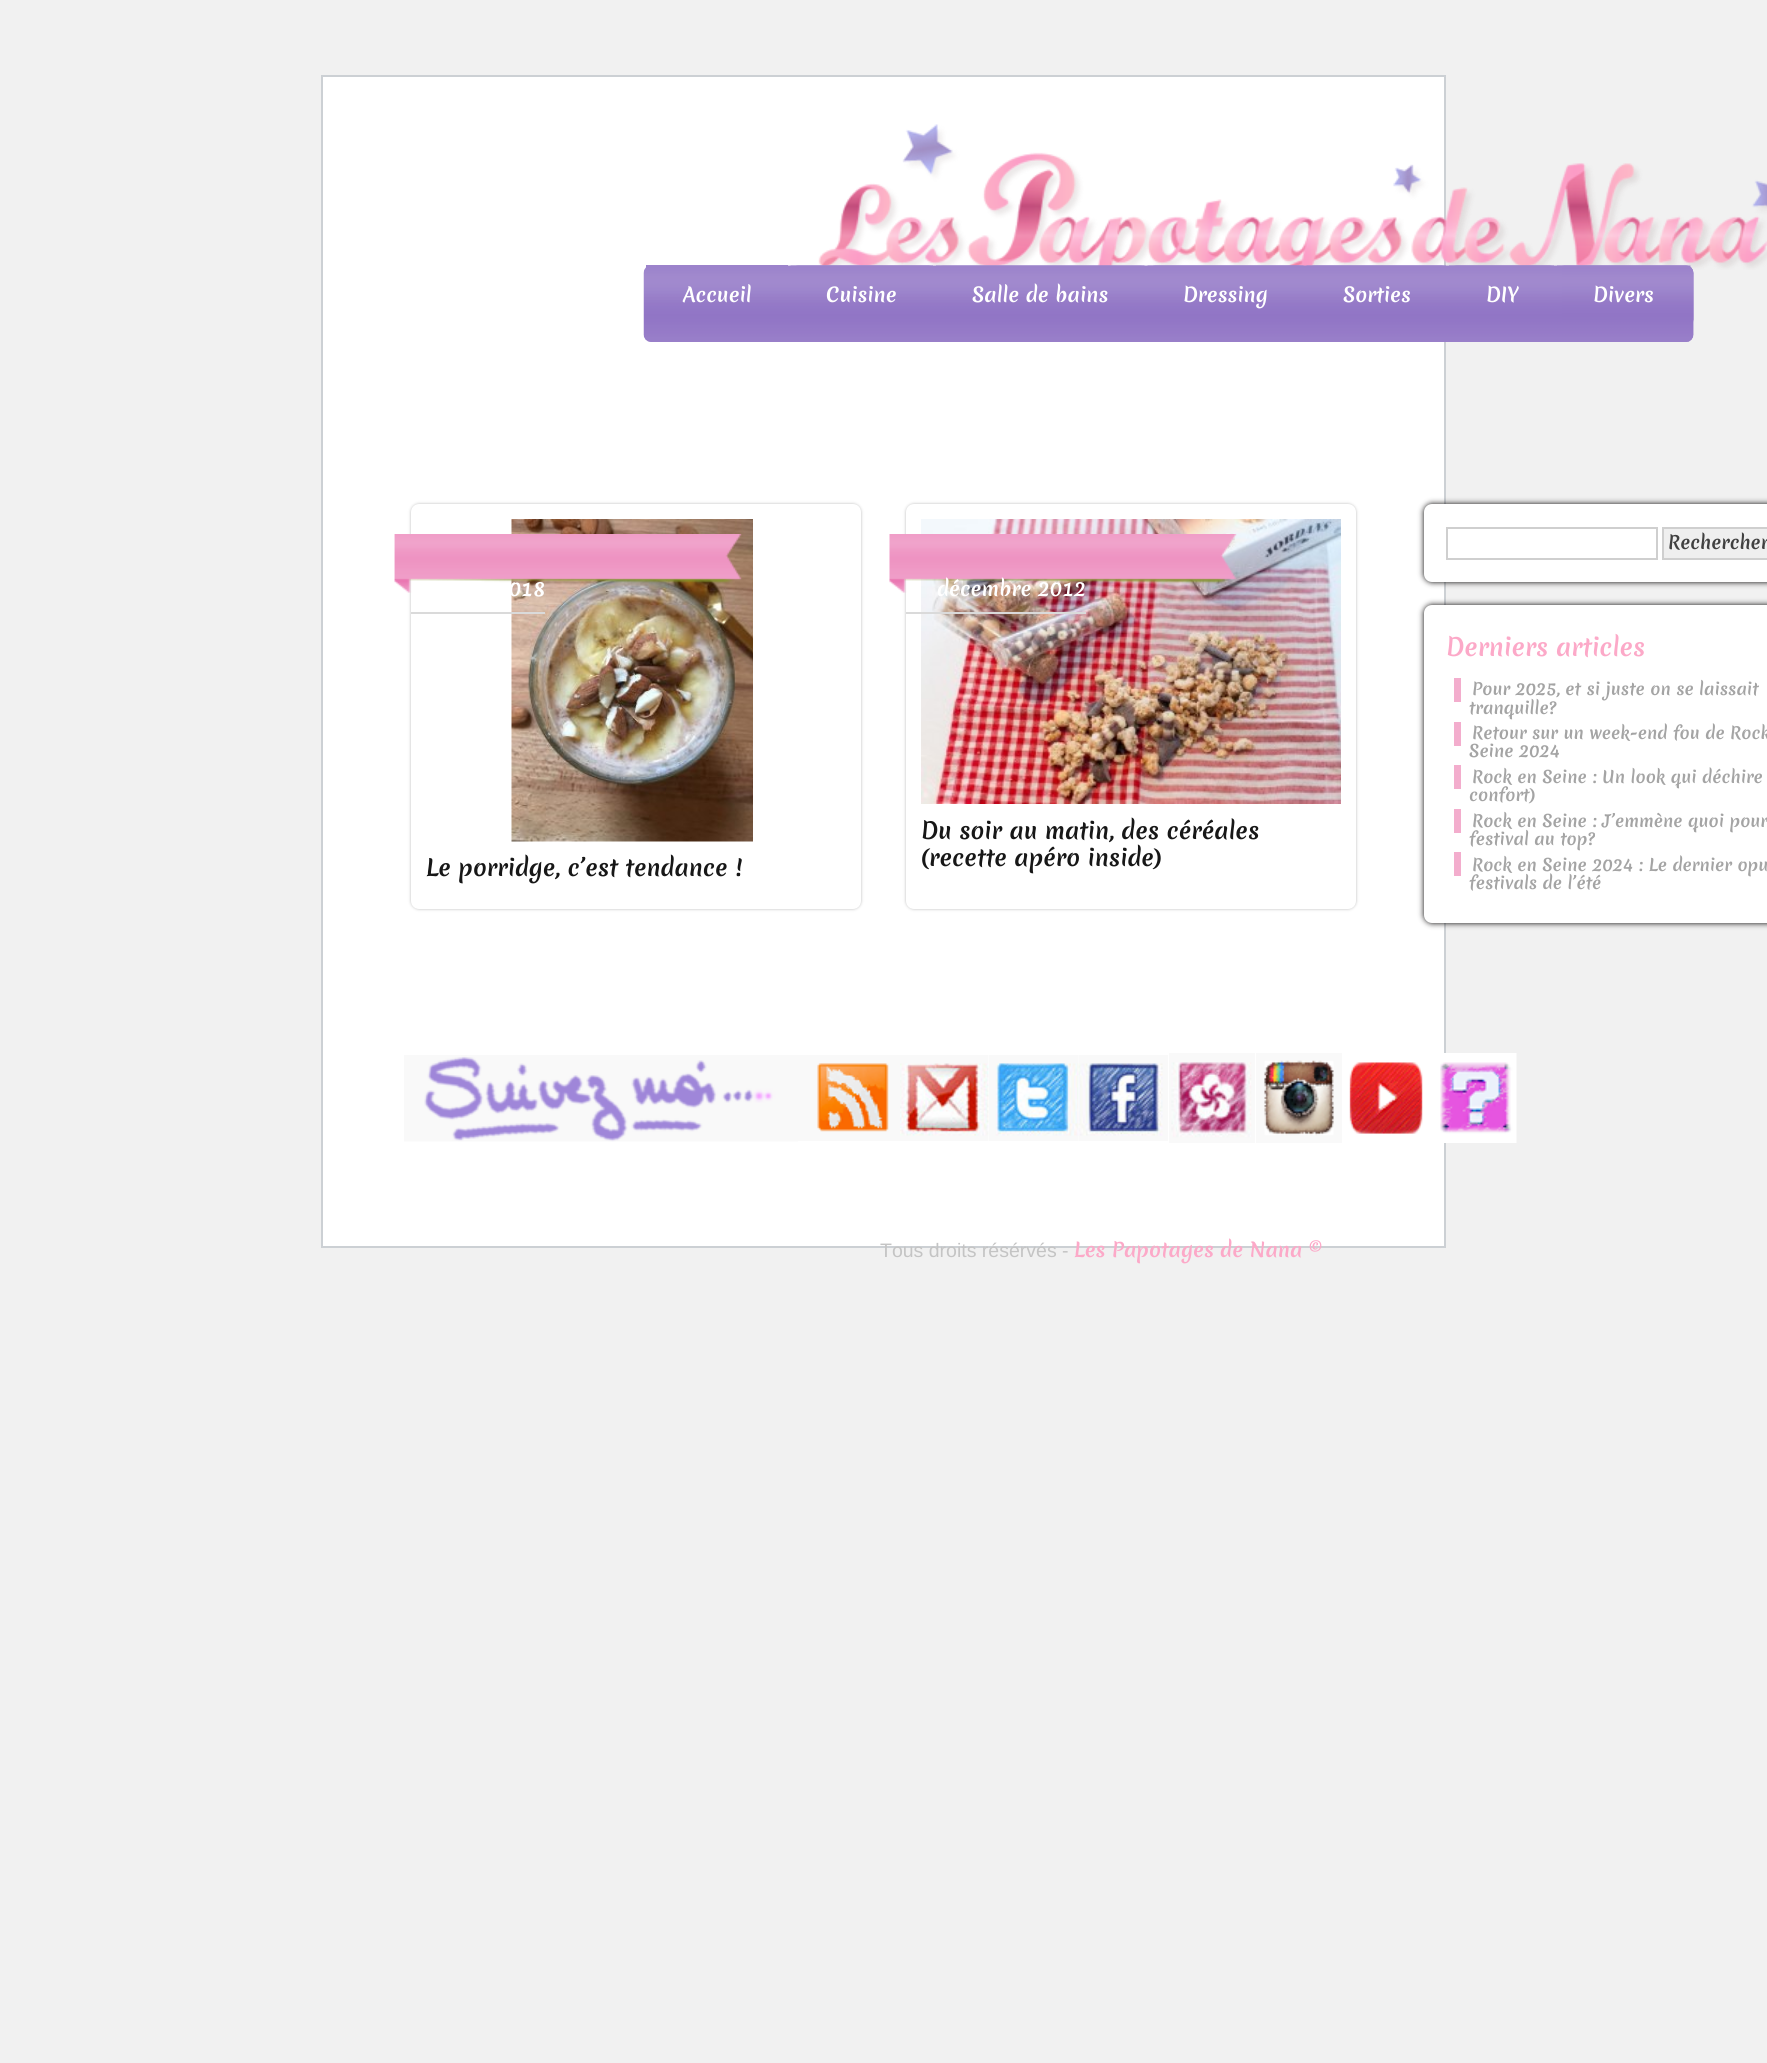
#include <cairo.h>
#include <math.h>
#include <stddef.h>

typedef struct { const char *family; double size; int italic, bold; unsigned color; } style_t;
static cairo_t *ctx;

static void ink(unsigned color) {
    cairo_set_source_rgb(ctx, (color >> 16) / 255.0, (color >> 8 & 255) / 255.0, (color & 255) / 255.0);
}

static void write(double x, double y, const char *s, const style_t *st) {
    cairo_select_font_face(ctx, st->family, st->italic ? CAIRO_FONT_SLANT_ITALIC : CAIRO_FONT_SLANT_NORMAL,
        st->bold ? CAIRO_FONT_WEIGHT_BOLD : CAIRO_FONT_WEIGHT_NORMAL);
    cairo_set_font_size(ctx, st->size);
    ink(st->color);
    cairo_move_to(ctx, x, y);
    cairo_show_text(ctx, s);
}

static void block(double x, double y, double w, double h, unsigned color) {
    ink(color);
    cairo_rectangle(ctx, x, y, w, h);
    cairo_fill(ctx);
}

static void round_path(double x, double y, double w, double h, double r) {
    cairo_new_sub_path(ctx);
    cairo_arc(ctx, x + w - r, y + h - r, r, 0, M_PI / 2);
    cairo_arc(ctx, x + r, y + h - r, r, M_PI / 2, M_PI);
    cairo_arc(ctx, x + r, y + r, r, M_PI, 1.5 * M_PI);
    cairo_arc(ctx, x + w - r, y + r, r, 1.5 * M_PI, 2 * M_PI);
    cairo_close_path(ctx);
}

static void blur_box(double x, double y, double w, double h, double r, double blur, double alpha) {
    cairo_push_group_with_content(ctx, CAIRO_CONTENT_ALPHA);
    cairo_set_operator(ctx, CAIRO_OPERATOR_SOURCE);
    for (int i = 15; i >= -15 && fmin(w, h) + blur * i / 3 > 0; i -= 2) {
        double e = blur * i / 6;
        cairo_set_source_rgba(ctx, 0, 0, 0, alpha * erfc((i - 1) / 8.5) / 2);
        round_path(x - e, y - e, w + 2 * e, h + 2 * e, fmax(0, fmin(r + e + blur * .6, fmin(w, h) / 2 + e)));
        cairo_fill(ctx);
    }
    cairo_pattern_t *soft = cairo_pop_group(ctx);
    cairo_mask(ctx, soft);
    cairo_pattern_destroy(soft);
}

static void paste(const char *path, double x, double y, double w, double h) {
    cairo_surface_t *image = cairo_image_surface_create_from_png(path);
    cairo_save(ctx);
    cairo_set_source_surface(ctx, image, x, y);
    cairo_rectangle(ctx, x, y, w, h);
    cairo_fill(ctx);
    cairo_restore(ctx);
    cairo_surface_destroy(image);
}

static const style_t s1 = {"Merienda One", 19.5, 0, 0, 0xffffff};
static const style_t s2 = {"Merienda One", 22.5, 0, 0, 0x171717};
static const style_t s3 = {"Merienda One", 18, 0, 0, 0x404040};
static const style_t s4 = {"Merienda One", 24, 0, 0, 0xfca9c8};
static const style_t s5 = {"Merienda One", 16.5, 0, 0, 0xa4a4a4};
static const style_t s6 = {"Liberation Sans", 19.5, 0, 0, 0xc4c4c4};
static const style_t s7 = {"Merienda One", 19.5, 0, 0, 0xfca9c8};

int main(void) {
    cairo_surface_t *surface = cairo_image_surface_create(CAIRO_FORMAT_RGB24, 1767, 2063);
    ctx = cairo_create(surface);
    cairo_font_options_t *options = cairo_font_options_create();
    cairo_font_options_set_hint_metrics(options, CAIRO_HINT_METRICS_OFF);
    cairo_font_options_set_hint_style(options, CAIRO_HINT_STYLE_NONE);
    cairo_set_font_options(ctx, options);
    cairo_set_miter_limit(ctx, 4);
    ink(0xf1f1f1);
    cairo_paint(ctx);
    ink(0xffffff);
    cairo_rectangle(ctx, 322, 76, 1123, 1171);
    cairo_fill_preserve(ctx);
    ink(0xccd0d4);
    cairo_stroke(ctx);
    paste("pic1.png", 818, 124, 949, 146);
    paste("pic2.png", 643, 265, 1051, 77);
    paste("pic3.png", 649, 265, 1045, 77);
    block(646, 265, 142, 3, 0x9c83cb);
    write(683, 302, "Accueil", &s1);
    paste("pic4.png", 796, 265, 135, 1);
    paste("pic5.png", 790, 265, 143, 1);
    write(826, 302, "Cuisine", &s1);
    paste("pic6.png", 941, 265, 201, 1);
    paste("pic7.png", 936, 265, 209, 1);
    write(972, 302, "Salle de bains", &s1);
    paste("pic8.png", 1153, 265, 148, 1);
    paste("pic9.png", 1147, 265, 157, 1);
    write(1183, 302, "Dressing", &s1);
    paste("pic10.png", 1312, 265, 132, 1);
    paste("pic11.png", 1306, 265, 140, 1);
    write(1343, 302, "Sorties", &s1);
    paste("pic12.png", 1454, 265, 98, 1);
    cairo_set_source_rgba(ctx, 0.608, 0.514, 0.796, 0.5);
    cairo_rectangle(ctx, 1449, 265, 105, 1);
    cairo_fill(ctx);
    write(1486, 302, "DIY", &s1);
    paste("pic13.png", 1562, 265, 132, 57);
    paste("pic14.png", 1557, 265, 134, 2);
    write(1593, 302, "Divers", &s1);
    ink(0xbbbbbb);
    blur_box(411, 504, 450, 405, 8, 1.5, 1);
    ink(0xffffff);
    round_path(411, 504, 450, 405, 8);
    cairo_fill(ctx);
    paste("pic15.png", 511, 519, 242, 323);
    paste("pic16.png", 394, 534, 348, 59);
    block(411, 612, 134, 2, 0xdadada);
    write(509, 596, "018", &s1);
    write(426, 876, "Le porridge, c’est tendance !", &s2);
    ink(0xbbbbbb);
    blur_box(906, 504, 450, 405, 8, 1.5, 1);
    ink(0xffffff);
    round_path(906, 504, 450, 405, 8);
    cairo_fill(ctx);
    paste("pic17.png", 921, 519, 420, 285);
    paste("pic18.png", 889, 534, 348, 59);
    block(906, 612, 180, 2, 0xdadada);
    write(937, 596, "décembre 2012", &s1);
    write(921, 839, "Du soir au matin, des céréales", &s2);
    write(921, 866, "(recette apéro inside)", &s2);
    ink(0x040202);
    blur_box(1424, 504, 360, 78, 8, 3, 1);
    ink(0xffffff);
    round_path(1424, 504, 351, 78, 8);
    cairo_fill(ctx);
    cairo_rectangle(ctx, 1447, 528, 210, 31);
    ink(0xcfcfcf);
    cairo_stroke(ctx);
    ink(0xefefef);
    cairo_rectangle(ctx, 1663, 528, 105, 31);
    cairo_fill_preserve(ctx);
    ink(0xcfcfcf);
    cairo_stroke(ctx);
    write(1668, 549, "Rechercher", &s3);
    ink(0x040202);
    blur_box(1424, 605, 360, 318, 8, 3, 1);
    ink(0xffffff);
    round_path(1424, 605, 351, 318, 8);
    cairo_fill(ctx);
    write(1446, 656, "Derniers articles", &s4);
    write(1472, 695, "Pour 2025, et si juste on se laissait", &s5);
    block(1454, 678, 7, 24, 0xf3adcd);
    write(1469, 714, "tranquille?", &s5);
    write(1472, 739, "Retour sur un week-end fou de Rock", &s5);
    block(1454, 722, 7, 24, 0xf3adcd);
    write(1469, 757, "Seine 2024", &s5);
    write(1472, 783, "Rock en Seine : Un look qui déchire", &s5);
    block(1454, 765, 7, 24, 0xf3adcd);
    write(1469, 801, "confort)", &s5);
    write(1472, 827, "Rock en Seine : J’emmène quoi pour", &s5);
    block(1454, 809, 7, 24, 0xf3adcd);
    write(1469, 845, "festival au top?", &s5);
    write(1472, 871, "Rock en Seine 2024 : Le dernier opu", &s5);
    block(1454, 852, 7, 24, 0xf3adcd);
    write(1469, 889, "festivals de l’été", &s5);
    paste("pic19.png", 404, 1055, 394, 87);
    paste("pic20.png", 798, 1055, 102, 86);
    paste("pic21.png", 900, 1055, 89, 86);
    paste("pic22.png", 989, 1055, 90, 86);
    paste("pic23.png", 1078, 1055, 90, 86);
    paste("pic24.png", 1169, 1053, 86, 90);
    paste("pic25.png", 1256, 1053, 86, 90);
    paste("pic26.png", 1349, 1062, 74, 72);
    paste("pic27.png", 1440, 1053, 77, 90);
    write(880, 1257, "Tous droits résérvés -", &s6);
    write(1074, 1257, "Les Papotages de Nana ©", &s7);
    cairo_surface_write_to_png(surface, "screenshot.png");
    cairo_font_options_destroy(options);
    cairo_destroy(ctx);
    cairo_surface_destroy(surface);
    return 0;
}
